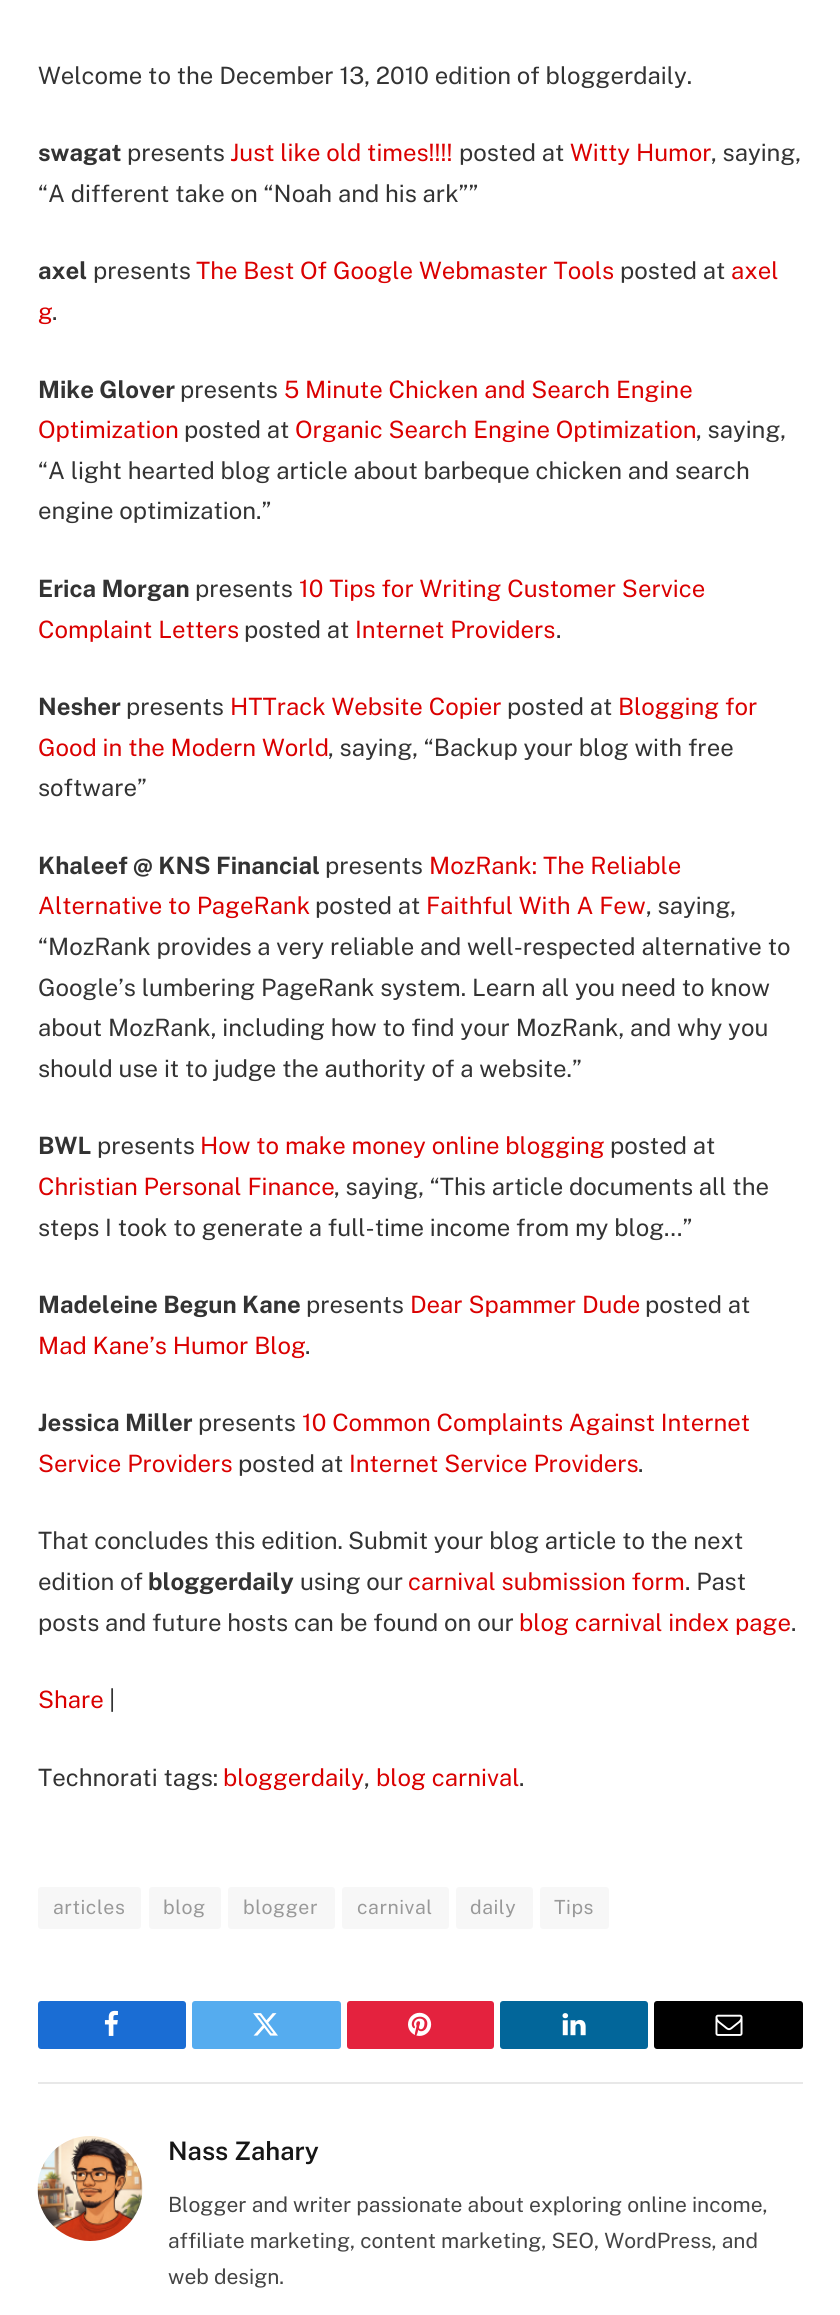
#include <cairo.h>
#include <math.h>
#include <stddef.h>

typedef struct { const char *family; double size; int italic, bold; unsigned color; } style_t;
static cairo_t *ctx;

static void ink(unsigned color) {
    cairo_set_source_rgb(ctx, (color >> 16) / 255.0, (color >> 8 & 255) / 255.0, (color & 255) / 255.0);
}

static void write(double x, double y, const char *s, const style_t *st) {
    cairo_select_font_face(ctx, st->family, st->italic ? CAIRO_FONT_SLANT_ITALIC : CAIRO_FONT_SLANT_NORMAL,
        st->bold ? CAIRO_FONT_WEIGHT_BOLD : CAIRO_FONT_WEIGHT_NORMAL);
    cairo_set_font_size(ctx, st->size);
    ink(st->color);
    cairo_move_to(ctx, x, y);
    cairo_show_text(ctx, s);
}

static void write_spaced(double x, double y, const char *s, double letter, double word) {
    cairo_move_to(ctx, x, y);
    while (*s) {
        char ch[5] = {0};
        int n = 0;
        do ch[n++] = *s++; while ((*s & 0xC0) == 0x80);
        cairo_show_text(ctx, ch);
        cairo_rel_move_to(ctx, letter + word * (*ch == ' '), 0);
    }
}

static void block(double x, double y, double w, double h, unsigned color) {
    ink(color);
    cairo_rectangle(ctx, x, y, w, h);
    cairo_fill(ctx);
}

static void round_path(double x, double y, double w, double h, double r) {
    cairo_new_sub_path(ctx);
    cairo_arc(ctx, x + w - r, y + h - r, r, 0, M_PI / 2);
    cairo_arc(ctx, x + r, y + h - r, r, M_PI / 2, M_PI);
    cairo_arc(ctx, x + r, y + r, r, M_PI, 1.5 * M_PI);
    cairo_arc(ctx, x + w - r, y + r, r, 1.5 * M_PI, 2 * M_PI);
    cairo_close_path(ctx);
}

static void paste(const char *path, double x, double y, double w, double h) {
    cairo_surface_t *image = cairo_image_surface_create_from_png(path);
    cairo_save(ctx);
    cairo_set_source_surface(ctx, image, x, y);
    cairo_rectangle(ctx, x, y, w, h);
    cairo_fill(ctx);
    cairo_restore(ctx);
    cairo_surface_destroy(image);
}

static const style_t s1 = {"Public Sans", 23.9, 0, 0, 0x333333};
static const style_t s2 = {"Public Sans", 23.9, 0, 1, 0x333333};
static const style_t s3 = {"Public Sans", 23.9, 0, 0, 0xda0000};
static const style_t s4 = {"Public Sans SemiBold", 25.5, 0, 0, 0x161616};
static const style_t s5 = {"Public Sans", 21, 0, 0, 0x444444};

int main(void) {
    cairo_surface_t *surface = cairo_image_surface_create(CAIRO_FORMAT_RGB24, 840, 2315);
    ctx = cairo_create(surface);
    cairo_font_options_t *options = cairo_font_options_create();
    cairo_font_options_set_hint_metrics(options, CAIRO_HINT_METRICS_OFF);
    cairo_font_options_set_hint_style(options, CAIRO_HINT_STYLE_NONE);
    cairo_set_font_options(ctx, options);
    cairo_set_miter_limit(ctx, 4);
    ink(0xffffff);
    cairo_paint(ctx);
    write(38, 84, "Welcome to the December 13, 2010 edition of bloggerdaily.", &s1);
    write(38, 161, "swagat", &s2);
    write(127, 161, "presents", &s1);
    write(230, 161, "Just like old times!!!!", &s3);
    write(459, 161, "posted at", &s1);
    write(570, 161, "Witty Humor", &s3);
    write(711, 161, ", saying,", &s1);
    write(38, 202, "“A different take on “Noah and his ark””", &s1);
    write(38, 279, "axel", &s2);
    write(93, 279, "presents", &s1);
    write(196, 279, "The Best Of Google Webmaster Tools", &s3);
    write(620, 279, "posted at", &s1);
    write(731, 279, "axel", &s3);
    write(38, 320, "g", &s3);
    write(52, 320, ".", &s1);
    write(38, 398, "Mike Glover", &s2);
    write(180, 398, "presents", &s1);
    write(284, 398, "5 Minute Chicken and Search Engine", &s3);
    write(38, 438, "Optimization", &s3);
    write(184, 438, "posted at", &s1);
    write(295, 438, "Organic Search Engine Optimization", &s3);
    write(696, 438, ", saying,", &s1);
    write(38, 479, "“A light hearted blog article about barbeque chicken and search", &s1);
    write(38, 519, "engine optimization.”", &s1);
    write(38, 597, "Erica Morgan", &s2);
    write(195, 597, "presents", &s1);
    write(299, 597, "10 Tips for Writing Customer Service", &s3);
    write(38, 638, "Complaint Letters", &s3);
    write(244, 638, "posted at", &s1);
    write(355, 638, "Internet Providers", &s3);
    write(556, 638, ".", &s1);
    write(38, 715, "Nesher", &s2);
    write(126, 715, "presents", &s1);
    write(230, 715, "HTTrack Website Copier", &s3);
    write(507, 715, "posted at", &s1);
    write(618, 715, "Blogging for", &s3);
    write(38, 756, "Good in the Modern World", &s3);
    write(328, 756, ", saying, “Backup your blog with free", &s1);
    write(38, 796, "software”", &s1);
    write(38, 874, "Khaleef @ KNS Financial", &s2);
    write(325, 874, "presents", &s1);
    write(429, 874, "MozRank: The Reliable", &s3);
    write(38, 914, "Alternative to PageRank", &s3);
    write(315, 914, "posted at", &s1);
    write(426, 914, "Faithful With A Few", &s3);
    write(646, 914, ", saying,", &s1);
    write(38, 955, "“MozRank provides a very reliable and well-respected alternative to", &s1);
    write(38, 996, "Google’s lumbering PageRank system. Learn all you need to know", &s1);
    write(38, 1036, "about MozRank, including how to find your MozRank, and why you", &s1);
    write(38, 1077, "should use it to judge the authority of a website.”", &s1);
    write(38, 1154, "BWL", &s2);
    write(97, 1154, "presents", &s1);
    write(200, 1154, "How to make money online blogging", &s3);
    write(610, 1154, "posted at", &s1);
    write(38, 1195, "Christian Personal Finance", &s3);
    write(334, 1195, ", saying, “This article documents all the", &s1);
    write(38, 1236, "steps I took to generate a full-time income from my blog…”", &s1);
    write(38, 1313, "Madeleine Begun Kane", &s2);
    write(306, 1313, "presents", &s1);
    write(410, 1313, "Dear Spammer Dude", &s3);
    write(645, 1313, "posted at", &s1);
    write(38, 1354, "Mad Kane’s Humor Blog", &s3);
    write(305, 1354, ".", &s1);
    write(38, 1431, "Jessica Miller", &s2);
    write(198, 1431, "presents", &s1);
    write(302, 1431, "10 Common Complaints Against Internet", &s3);
    write(38, 1472, "Service Providers", &s3);
    write(238, 1472, "posted at", &s1);
    write(349, 1472, "Internet Service Providers", &s3);
    write(638, 1472, ".", &s1);
    write(38, 1549, "That concludes this edition.", &s1);
    write(348, 1549, "Submit your blog article to the next", &s1);
    write(38, 1590, "edition of", &s1);
    write(148, 1590, "bloggerdaily", &s2);
    write(300, 1590, "using our", &s1);
    write(408, 1590, "carnival submission form", &s3);
    write(685, 1590, ". Past", &s1);
    write(38, 1631, "posts and future hosts can be found on our", &s1);
    write(519, 1631, "blog carnival index page", &s3);
    write(791, 1631, ".", &s1);
    write(38, 1708, "Share", &s3);
    write(109, 1708, "|", &s1);
    write(38, 1786, "Technorati tags:", &s1);
    write(223, 1786, "bloggerdaily", &s3);
    write(364, 1786, ",", &s1);
    write(376, 1786, "blog carnival", &s3);
    write(519, 1786, ".", &s1);
    ink(0xf7f7f7);
    round_path(38, 1887, 103, 42, 3);
    cairo_fill(ctx);
    cairo_set_font_size(ctx, 19.5);
    ink(0x999999);
    write_spaced(53, 1914, "articles", 0.5, 0);
    ink(0xf7f7f7);
    round_path(149, 1887, 72, 42, 3);
    cairo_fill(ctx);
    ink(0x999999);
    write_spaced(163, 1914, "blog", 0.5, 0);
    ink(0xf7f7f7);
    round_path(228, 1887, 107, 42, 3);
    cairo_fill(ctx);
    ink(0x999999);
    write_spaced(243, 1914, "blogger", 0.5, 0);
    ink(0xf7f7f7);
    round_path(342, 1887, 107, 42, 3);
    cairo_fill(ctx);
    ink(0x999999);
    write_spaced(357, 1914, "carnival", 0.5, 0);
    ink(0xf7f7f7);
    round_path(456, 1887, 77, 42, 3);
    cairo_fill(ctx);
    ink(0x999999);
    write_spaced(470, 1914, "daily", 0.5, 0);
    ink(0xf7f7f7);
    round_path(540, 1887, 69, 42, 3);
    cairo_fill(ctx);
    ink(0x999999);
    write_spaced(554, 1914, "Tips", 0.5, 0);
    ink(0x1a6dd4);
    round_path(38, 2001, 148, 48, 3);
    cairo_fill(ctx);
    paste("pic1.png", 104, 2010, 14, 26);
    ink(0x55acef);
    round_path(192, 2001, 149, 48, 3);
    cairo_fill(ctx);
    paste("pic2.png", 253, 2013, 25, 23);
    ink(0xe4223e);
    round_path(347, 2001, 147, 48, 3);
    cairo_fill(ctx);
    paste("pic3.png", 408, 2012, 24, 24);
    ink(0x02669a);
    round_path(500, 2001, 148, 48, 3);
    cairo_fill(ctx);
    paste("pic4.png", 562, 2013, 24, 23);
    ink(0x000000);
    round_path(654, 2001, 149, 48, 3);
    cairo_fill(ctx);
    paste("pic5.png", 715, 2014, 28, 22);
    block(38, 2082, 765, 2, 0xe8e8e8);
    paste("pic6.png", 37, 2136, 106, 105);
    write(168, 2160, "Nass Zahary", &s4);
    write(168, 2212, "Blogger and writer passionate about exploring online income,", &s5);
    write(168, 2248, "affiliate marketing, content marketing, SEO, WordPress, and", &s5);
    write(168, 2284, "web design.", &s5);
    cairo_surface_write_to_png(surface, "screenshot.png");
    cairo_font_options_destroy(options);
    cairo_destroy(ctx);
    cairo_surface_destroy(surface);
    return 0;
}
